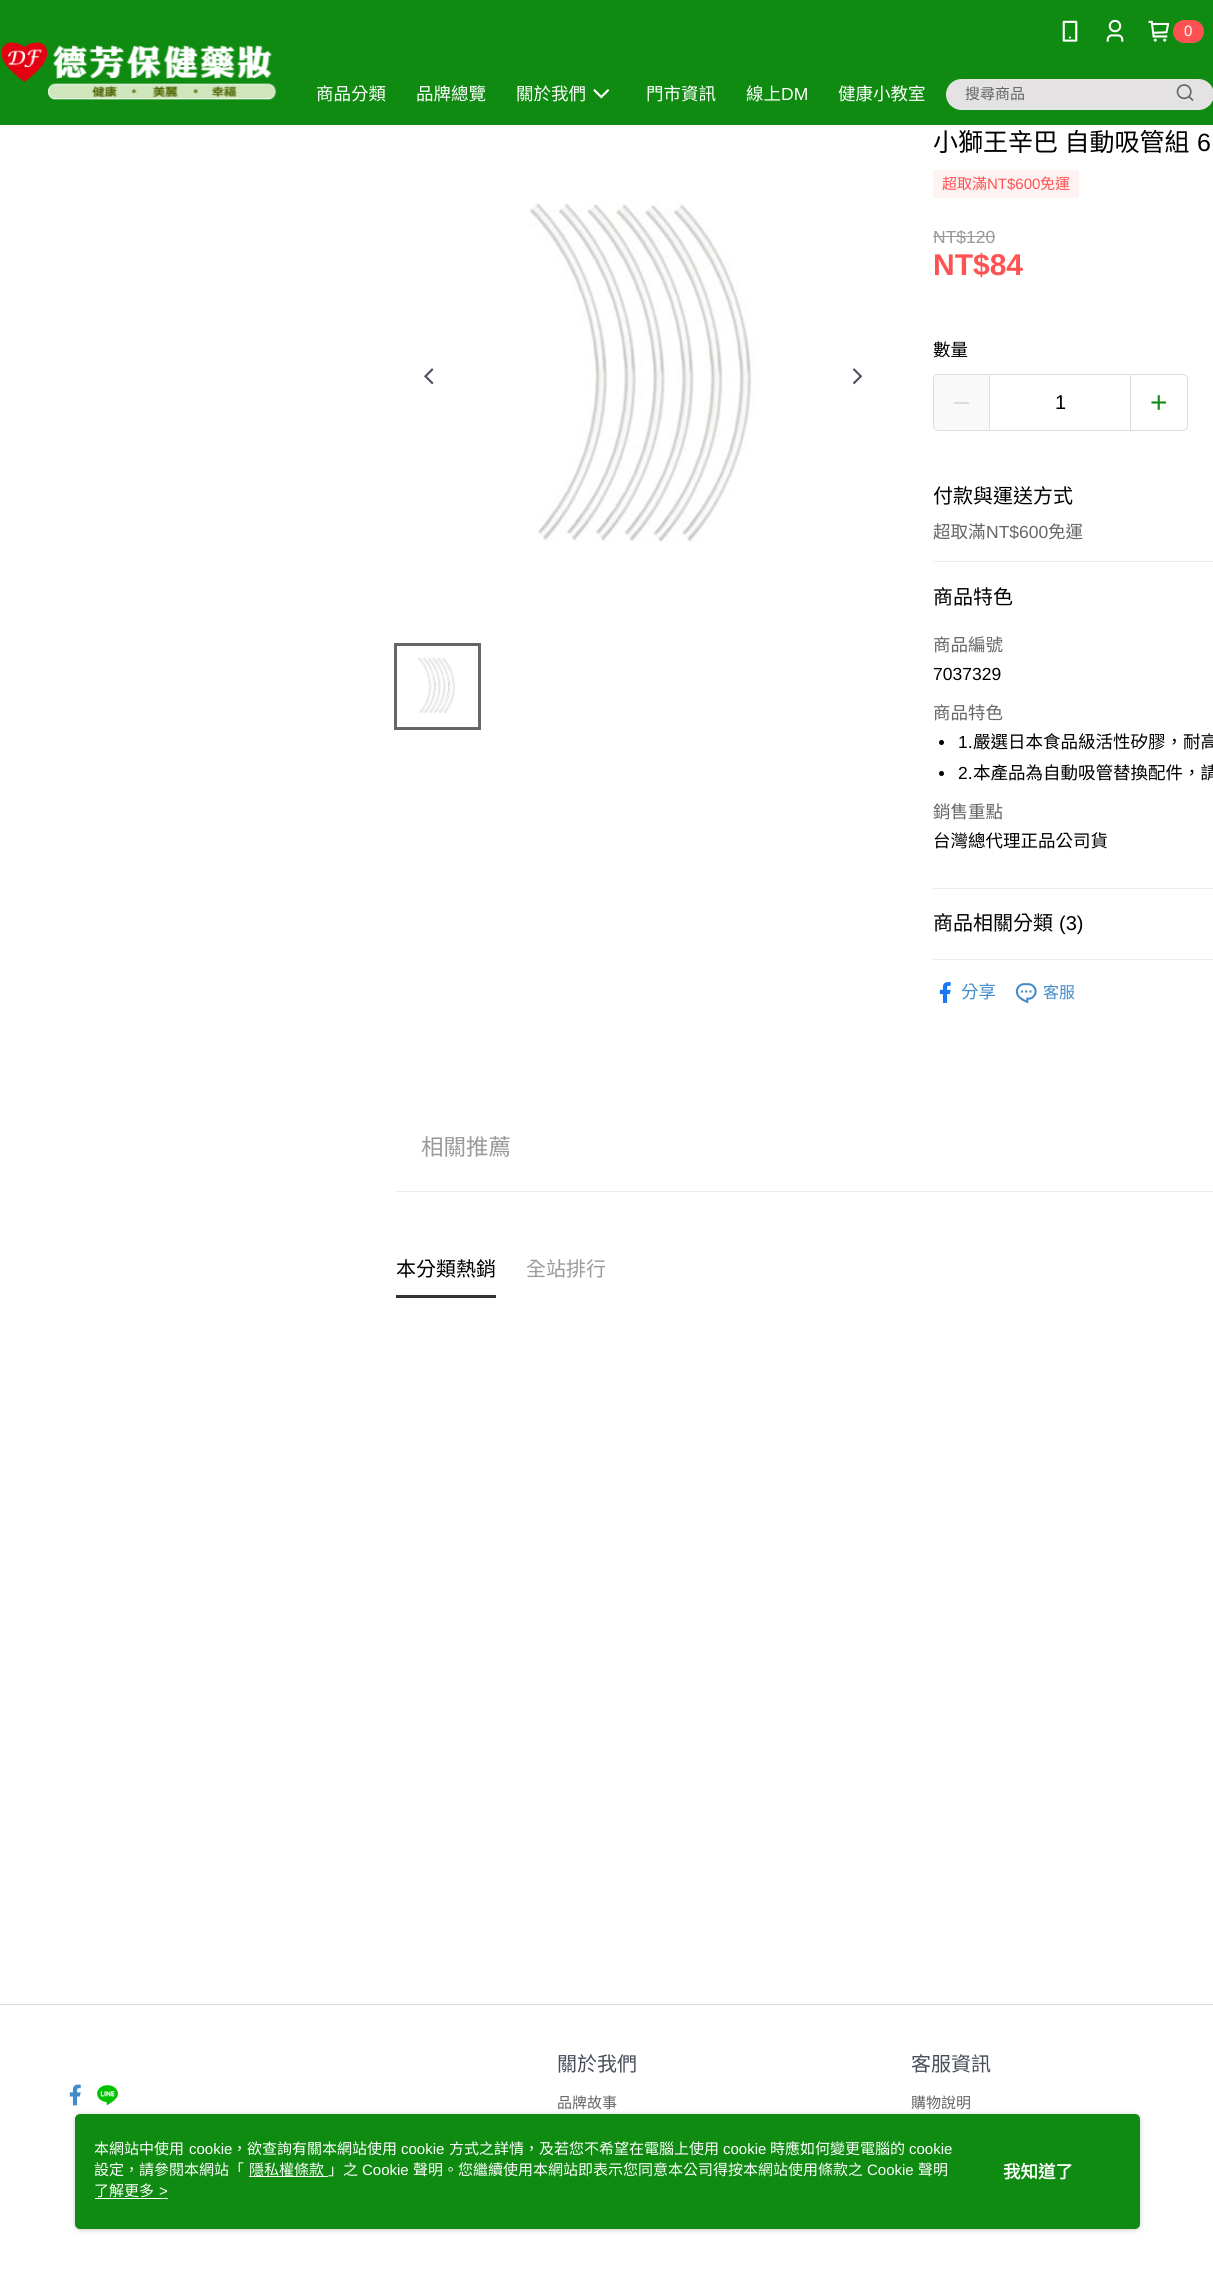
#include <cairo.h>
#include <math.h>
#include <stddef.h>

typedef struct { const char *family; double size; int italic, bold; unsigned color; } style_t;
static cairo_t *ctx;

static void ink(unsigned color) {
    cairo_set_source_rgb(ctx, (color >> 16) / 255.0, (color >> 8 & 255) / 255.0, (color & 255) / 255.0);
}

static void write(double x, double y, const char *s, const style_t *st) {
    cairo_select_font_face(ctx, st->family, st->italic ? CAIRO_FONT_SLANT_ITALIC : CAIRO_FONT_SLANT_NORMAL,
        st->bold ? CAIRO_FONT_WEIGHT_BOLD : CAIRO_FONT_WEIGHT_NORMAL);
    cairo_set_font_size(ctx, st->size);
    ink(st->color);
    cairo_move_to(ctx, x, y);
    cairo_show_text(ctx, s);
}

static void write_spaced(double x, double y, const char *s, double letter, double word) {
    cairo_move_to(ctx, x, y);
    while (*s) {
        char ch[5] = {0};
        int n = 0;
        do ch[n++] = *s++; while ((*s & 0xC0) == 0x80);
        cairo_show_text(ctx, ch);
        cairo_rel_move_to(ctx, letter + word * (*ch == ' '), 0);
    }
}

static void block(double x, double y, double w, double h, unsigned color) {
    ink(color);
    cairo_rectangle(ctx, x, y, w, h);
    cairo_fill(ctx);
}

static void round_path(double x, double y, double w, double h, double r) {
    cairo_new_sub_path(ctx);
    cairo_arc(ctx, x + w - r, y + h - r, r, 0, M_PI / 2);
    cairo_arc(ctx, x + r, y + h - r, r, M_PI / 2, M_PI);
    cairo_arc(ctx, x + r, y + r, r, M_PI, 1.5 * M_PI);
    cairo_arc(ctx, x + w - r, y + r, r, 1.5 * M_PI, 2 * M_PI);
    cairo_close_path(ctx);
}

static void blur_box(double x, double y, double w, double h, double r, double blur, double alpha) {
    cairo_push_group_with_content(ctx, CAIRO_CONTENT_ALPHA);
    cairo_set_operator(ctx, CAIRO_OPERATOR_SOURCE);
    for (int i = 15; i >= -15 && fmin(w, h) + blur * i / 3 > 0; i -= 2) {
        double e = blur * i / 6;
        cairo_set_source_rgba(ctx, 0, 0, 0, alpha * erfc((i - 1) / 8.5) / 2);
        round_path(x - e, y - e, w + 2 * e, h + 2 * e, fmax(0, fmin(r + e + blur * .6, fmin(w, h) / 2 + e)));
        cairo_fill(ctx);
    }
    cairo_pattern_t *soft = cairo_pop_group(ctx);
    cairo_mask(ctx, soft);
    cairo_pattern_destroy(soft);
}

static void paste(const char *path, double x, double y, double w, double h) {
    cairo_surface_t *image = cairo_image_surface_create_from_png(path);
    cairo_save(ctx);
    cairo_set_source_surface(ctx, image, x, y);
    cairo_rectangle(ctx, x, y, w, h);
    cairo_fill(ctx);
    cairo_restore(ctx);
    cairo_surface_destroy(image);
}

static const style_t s1 = {"Liberation Sans", 15, 0, 0, 0xffffff};
static const style_t s2 = {"Noto Sans CJK TC", 17.5, 0, 0, 0xffffff};
static const style_t s3 = {"Liberation Sans", 17.5, 0, 0, 0xffffff};
static const style_t s4 = {"Noto Sans CJK TC", 15, 0, 0, 0x666666};
static const style_t s5 = {"Liberation Sans", 25, 0, 0, 0x000000};
static const style_t s6 = {"Noto Sans CJK TC", 15, 0, 0, 0xff5353};
static const style_t s7 = {"Liberation Sans", 15, 0, 0, 0xff5353};
static const style_t s8 = {"Liberation Sans", 17.5, 0, 0, 0x999999};
static const style_t s9 = {"Liberation Sans", 30, 0, 1, 0xff5353};
static const style_t s10 = {"Noto Sans CJK TC", 17.5, 0, 0, 0x000000};
static const style_t s11 = {"Liberation Sans", 20, 0, 0, 0x000000};
static const style_t s12 = {"Noto Sans CJK TC", 20, 0, 0, 0x000000};
static const style_t s13 = {"Noto Sans CJK TC", 17.5, 0, 0, 0x666666};
static const style_t s14 = {"Liberation Sans", 17.5, 0, 0, 0x666666};
static const style_t s15 = {"Liberation Sans", 17.5, 0, 0, 0x000000};
static const style_t s16 = {"Noto Sans CJK TC", 17.5, 0, 0, 0x428bca};
static const style_t s17 = {"Noto Sans CJK TC", 16, 0, 0, 0x428bca};
static const style_t s18 = {"Noto Sans CJK TC", 22.5, 0, 0, 0x999999};
static const style_t s19 = {"Noto Sans CJK TC", 20, 0, 0, 0x999999};
static const style_t s20 = {"Noto Sans CJK TC", 20, 0, 0, 0x4a4e5c};
static const style_t s21 = {"Noto Sans CJK TC", 15, 0, 0, 0xffffff};
static const style_t s22 = {"Noto Sans CJK TC", 17.5, 0, 1, 0xffffff};

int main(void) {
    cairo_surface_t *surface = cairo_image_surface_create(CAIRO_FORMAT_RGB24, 1213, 2286);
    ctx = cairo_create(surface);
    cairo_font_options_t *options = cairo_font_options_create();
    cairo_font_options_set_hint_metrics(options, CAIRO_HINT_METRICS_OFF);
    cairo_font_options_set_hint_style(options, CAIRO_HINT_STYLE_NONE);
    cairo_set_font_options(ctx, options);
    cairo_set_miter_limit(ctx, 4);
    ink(0xffffff);
    cairo_paint(ctx);
    block(0, 0, 1213, 125, 0x0e8b10);
    paste("pic1.png", 1, 42, 276, 58);
    paste("pic2.png", 1062, 20, 16, 22);
    paste("pic3.png", 1106, 19, 18, 23);
    paste("pic4.png", 1148, 20, 22, 22);
    ink(0xff5353);
    round_path(1173, 20, 31, 23, 11.5);
    cairo_fill(ctx);
    write(1184, 36, "0", &s1);
    write(316, 100, "商品分類", &s2);
    write(416, 100, "品牌總覽", &s2);
    write(516, 100, "關於我們", &s2);
    paste("pic5.png", 593, 89, 17, 10);
    write(646, 100, "門市資訊", &s2);
    write(746, 100, "線上", &s2);
    write(781, 100, "DM", &s3);
    write(838, 100, "健康小教室", &s2);
    ink(0xe4e2e2);
    round_path(946, 79, 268, 31, 15.5);
    cairo_fill(ctx);
    write(965, 99, "搜尋商品", &s4);
    paste("pic6.png", 1176, 84, 18, 17);
    paste("pic7.png", 424, 368, 10, 17);
    paste("pic8.png", 529, 201, 227, 341);
    paste("pic9.png", 852, 368, 11, 17);
    paste("pic10.png", 418, 657, 37, 57);
    cairo_rectangle(ctx, 395.5, 644.5, 84, 84);
    cairo_set_line_width(ctx, 3);
    cairo_stroke(ctx);
    cairo_set_font_size(ctx, 25);
    ink(0x000000);
    write_spaced(933, 151, "小獅王辛巴 自動吸管組", 0, 1);
    write(1197, 151, "6", &s5);
    ink(0xfff2f2);
    round_path(933, 170, 146, 28, 2.5);
    cairo_fill(ctx);
    write(942, 189, "超取滿", &s6);
    write(987, 189, "NT$600", &s7);
    write(1040, 189, "免運", &s6);
    write(933, 243, "NT$120", &s8);
    block(933, 236, 62, 1, 0x999999);
    write(933, 275, "NT$84", &s9);
    write(933, 356, "數量", &s10);
    round_path(933.5, 374.5, 254, 56, 4.5);
    ink(0xdddddd);
    cairo_set_line_width(ctx, 1);
    cairo_stroke(ctx);
    cairo_set_source_rgba(ctx, 0.945, 0.945, 0.945, 0.4);
    cairo_rectangle(ctx, 934, 375, 55, 55);
    cairo_fill(ctx);
    block(954, 402, 15, 2, 0xdddddd);
    block(1130, 375, 1, 55, 0xdddddd);
    block(989, 375, 1, 55, 0xdddddd);
    write(1055, 409, "1", &s11);
    paste("pic11.png", 1151, 395, 16, 15);
    block(933, 561, 280, 1, 0xeceff1);
    write(933, 503, "付款與運送方式", &s12);
    write(933, 538, "超取滿", &s13);
    write(986, 538, "NT$600", &s14);
    write(1048, 538, "免運", &s13);
    block(933, 888, 280, 1, 0xeceff1);
    write(933, 604, "商品特色", &s12);
    write(933, 651, "商品編號", &s13);
    write(933, 680, "7037329", &s15);
    write(933, 719, "商品特色", &s13);
    ink(0x000000);
    cairo_new_path(ctx);
    cairo_arc(ctx, 941.5, 742.5, 2.5, 0, 2 * M_PI);
    cairo_fill(ctx);
    write(958, 748, "1.", &s15);
    write(973, 748, "嚴選日本食品級活性矽膠，耐高", &s10);
    cairo_new_path(ctx);
    cairo_arc(ctx, 941.5, 773.5, 2.5, 0, 2 * M_PI);
    cairo_fill(ctx);
    write(958, 779, "2.", &s15);
    write(973, 779, "本產品為自動吸管替換配件，請", &s10);
    write(933, 818, "銷售重點", &s13);
    write(933, 847, "台灣總代理正品公司貨", &s10);
    block(933, 959, 280, 1, 0xeceff1);
    write(933, 930, "商品相關分類", &s12);
    write(1059, 930, "(3)", &s11);
    paste("pic12.png", 939, 982, 12, 21);
    write(961, 998, "分享", &s16);
    paste("pic13.png", 1015, 983, 22, 21);
    write(1043, 998, "客服", &s17);
    block(396, 1191, 817, 1, 0xececec);
    write(421, 1155, "相關推薦", &s18);
    block(396, 1295, 100, 3, 0x333333);
    write(396, 1276, "本分類熱銷", &s12);
    write(526, 1276, "全站排行", &s19);
    block(0, 2004, 1213, 1, 0xdadada);
    paste("pic14.png", 69, 2084, 12, 22);
    paste("pic15.png", 97, 2085, 21, 20);
    write(557, 2071, "關於我們", &s20);
    write(557, 2108, "品牌故事", &s4);
    write(911, 2071, "客服資訊", &s20);
    write(911, 2108, "購物說明", &s4);
    ink(0x979797);
    blur_box(75, 2115, 1065, 115, 5, 2.5, 0.5);
    ink(0x0e8b10);
    round_path(75, 2114, 1065, 115, 5);
    cairo_fill(ctx);
    write(94, 2154, "本網站中使用", &s21);
    write(189, 2154, "cookie", &s1);
    write(232, 2154, "，欲查詢有關本網站使用", &s21);
    write(401, 2154, "cookie", &s1);
    write(449, 2154, "方式之詳情，及若您不希望在電腦上使用", &s21);
    write(723, 2154, "cookie", &s1);
    write(770, 2154, "時應如何變更電腦的", &s21);
    write(909, 2154, "cookie", &s1);
    write(94, 2175, "設定，請參閱本網站「", &s21);
    block(249, 2176, 79, 1, 0xffffff);
    write(249, 2175, "隱私權條款", &s21);
    write(328, 2175, "」之", &s21);
    write(362, 2175, "Cookie", &s1);
    write(413, 2175, "聲明。您繼續使用本網站即表示您同意本公司得按本網站使用條款之", &s21);
    write(867, 2175, "Cookie", &s1);
    write(918, 2175, "聲明", &s21);
    write(94, 2196, "了解更多", &s21);
    write(159, 2196, ">", &s1);
    block(95, 2198, 73, 1, 0xffffff);
    write(1003, 2178, "我知道了", &s22);
    cairo_surface_write_to_png(surface, "screenshot.png");
    cairo_font_options_destroy(options);
    cairo_destroy(ctx);
    cairo_surface_destroy(surface);
    return 0;
}
